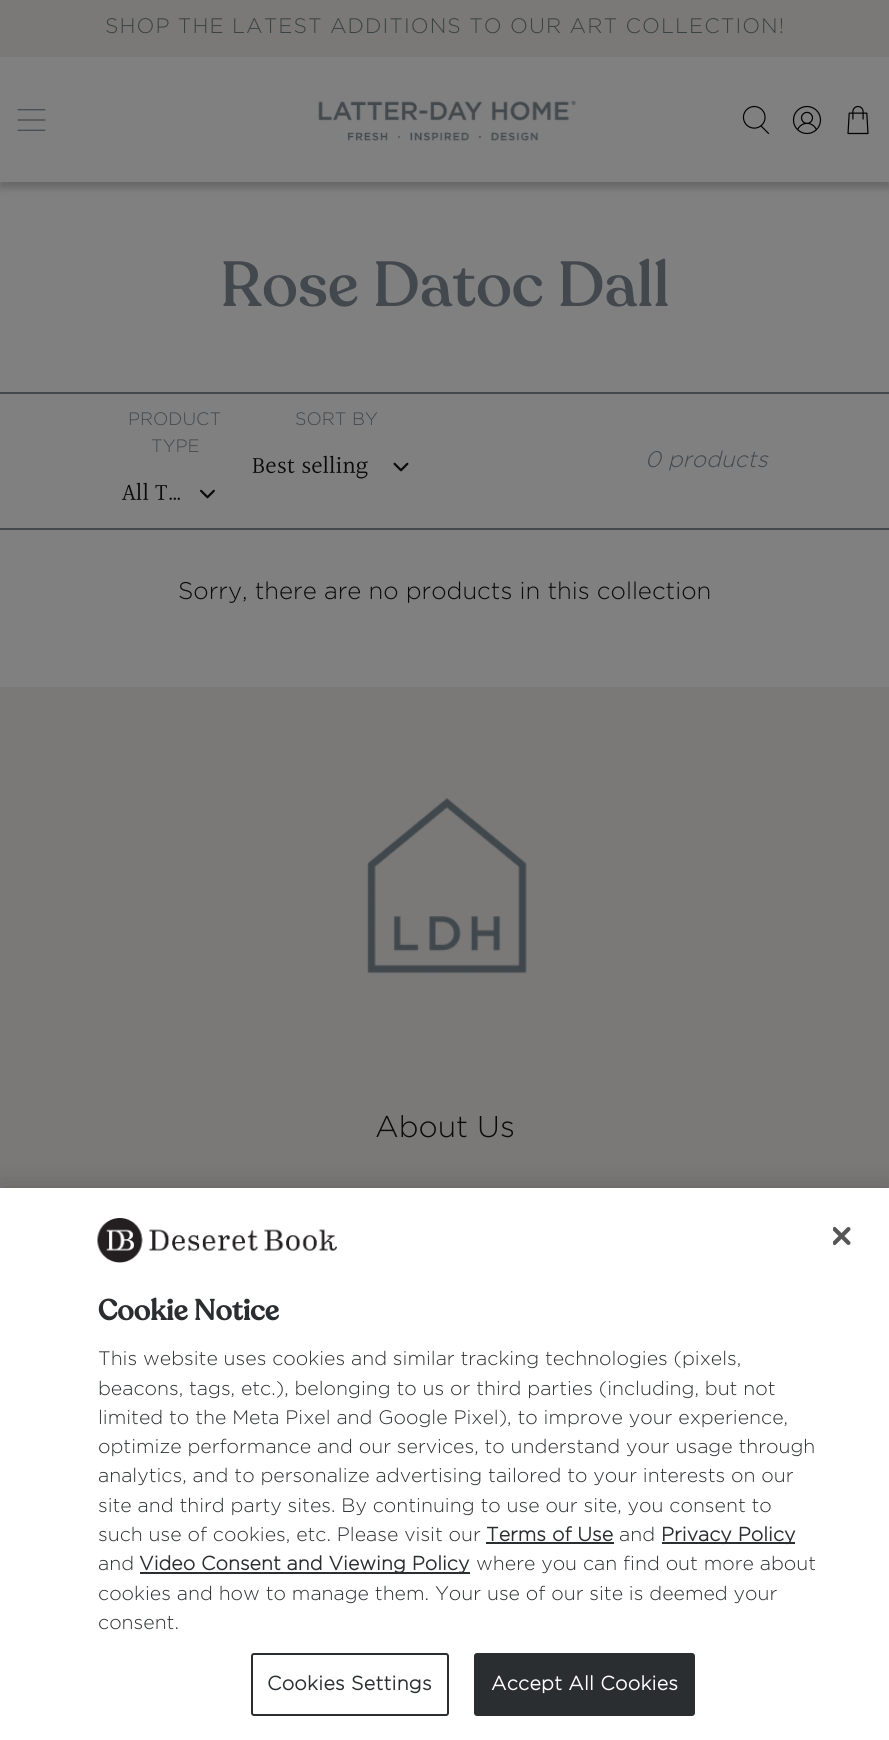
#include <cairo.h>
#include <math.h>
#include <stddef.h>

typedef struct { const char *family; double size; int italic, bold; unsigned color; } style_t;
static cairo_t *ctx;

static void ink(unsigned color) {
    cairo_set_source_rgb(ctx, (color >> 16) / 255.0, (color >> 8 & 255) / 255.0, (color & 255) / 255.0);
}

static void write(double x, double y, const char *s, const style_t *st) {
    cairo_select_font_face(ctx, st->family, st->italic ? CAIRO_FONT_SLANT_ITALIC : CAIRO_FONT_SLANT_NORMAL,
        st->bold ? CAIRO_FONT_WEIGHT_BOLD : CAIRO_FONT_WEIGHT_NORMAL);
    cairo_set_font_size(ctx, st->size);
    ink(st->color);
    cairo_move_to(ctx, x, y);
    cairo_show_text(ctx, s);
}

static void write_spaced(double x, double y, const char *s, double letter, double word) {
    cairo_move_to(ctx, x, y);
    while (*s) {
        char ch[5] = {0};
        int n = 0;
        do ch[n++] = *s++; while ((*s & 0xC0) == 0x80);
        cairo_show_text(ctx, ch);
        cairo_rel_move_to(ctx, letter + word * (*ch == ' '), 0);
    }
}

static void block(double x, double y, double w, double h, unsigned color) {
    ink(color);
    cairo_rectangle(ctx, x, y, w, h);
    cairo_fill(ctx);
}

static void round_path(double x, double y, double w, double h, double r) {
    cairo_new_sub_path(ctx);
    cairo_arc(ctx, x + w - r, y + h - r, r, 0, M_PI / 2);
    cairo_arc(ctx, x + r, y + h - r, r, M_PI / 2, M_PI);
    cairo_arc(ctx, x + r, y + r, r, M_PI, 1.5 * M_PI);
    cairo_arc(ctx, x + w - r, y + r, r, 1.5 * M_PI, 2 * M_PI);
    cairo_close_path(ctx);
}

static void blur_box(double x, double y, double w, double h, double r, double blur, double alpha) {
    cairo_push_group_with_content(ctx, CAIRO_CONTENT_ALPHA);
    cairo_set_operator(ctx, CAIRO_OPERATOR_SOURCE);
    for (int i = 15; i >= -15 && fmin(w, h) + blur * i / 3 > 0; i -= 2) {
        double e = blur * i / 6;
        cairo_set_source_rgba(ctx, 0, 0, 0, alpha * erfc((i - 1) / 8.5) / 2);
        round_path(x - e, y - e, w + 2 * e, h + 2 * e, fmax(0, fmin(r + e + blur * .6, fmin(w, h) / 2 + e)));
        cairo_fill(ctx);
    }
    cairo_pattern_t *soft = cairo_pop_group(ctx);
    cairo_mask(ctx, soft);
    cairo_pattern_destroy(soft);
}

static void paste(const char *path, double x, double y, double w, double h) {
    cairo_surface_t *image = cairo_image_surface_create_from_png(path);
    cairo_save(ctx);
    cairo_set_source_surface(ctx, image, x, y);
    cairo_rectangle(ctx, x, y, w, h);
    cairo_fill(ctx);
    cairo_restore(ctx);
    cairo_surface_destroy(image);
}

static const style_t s1 = {"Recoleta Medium", 63, 0, 0, 0x42484d};
static const style_t s2 = {"Gotham Light", 18, 0, 0, 0x42484d};
static const style_t s3 = {"Halant", 24, 0, 0, 0x0a0a0a};
static const style_t s4 = {"Gotham Light", 22.5, 1, 0, 0x42484d};
static const style_t s5 = {"Gotham Light", 24, 0, 0, 0x0a0a0a};
static const style_t s6 = {"Gotham Light", 30, 0, 0, 0x0a0a0a};
static const style_t s7 = {"Recoleta", 28.75, 0, 1, 0x2b2e30};
static const style_t s8 = {"Gotham Light", 19.5, 0, 0, 0x2b2e30};
static const style_t s9 = {"Gotham", 19.5, 0, 1, 0x2b2e30};

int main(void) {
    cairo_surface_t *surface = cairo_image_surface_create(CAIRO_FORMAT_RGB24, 889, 1740);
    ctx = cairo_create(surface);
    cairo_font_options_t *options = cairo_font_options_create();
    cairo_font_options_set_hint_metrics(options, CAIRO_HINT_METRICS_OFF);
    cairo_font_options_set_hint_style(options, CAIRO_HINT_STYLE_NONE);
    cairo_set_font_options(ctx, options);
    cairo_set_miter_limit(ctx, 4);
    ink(0x808080);
    cairo_paint(ctx);
    ink(0x000000);
    blur_box(0, 6, 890, 182, 0, 4, 0.2);
    block(0, 0, 889, 57, 0x7b7977);
    cairo_select_font_face(ctx, "Gotham Light", CAIRO_FONT_SLANT_NORMAL, CAIRO_FONT_WEIGHT_NORMAL);
    cairo_set_font_size(ctx, 21);
    ink(0x3a4344);
    write_spaced(105, 33, "SHOP THE LATEST ADDITIONS TO OUR ART COLLECTION!", 1.05, 0);
    block(0, 57, 889, 125, 0x808080);
    paste("pic1.png", 17, 109, 29, 22);
    paste("pic2.png", 318, 100, 259, 41);
    paste("pic3.png", 742, 105, 28, 29);
    paste("pic4.png", 792, 105, 30, 30);
    paste("pic5.png", 847, 105, 22, 30);
    write(220, 306, "Rose Datoc Dall", &s1);
    block(0, 392, 889, 2, 0x42484d);
    block(0, 528, 889, 2, 0x42484d);
    write(128, 425, "PRODUCT", &s2);
    write(151, 452, "TYPE", &s2);
    write(122, 501, "All T…", &s3);
    paste("pic6.png", 200, 489, 15, 10);
    write(295, 425, "SORT BY", &s2);
    write(252, 474, "Best selling", &s3);
    paste("pic7.png", 393, 462, 16, 10);
    write(645, 467, "0 products", &s4);
    write(178, 599, "Sorry, there are no products in this collection", &s5);
    block(0, 687, 889, 501, 0x7b7978);
    paste("pic8.png", 366, 798, 161, 176);
    write(375, 1137, "About Us", &s6);
    ink(0x000000);
    blur_box(0, 1188, 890, 552, 0, 13.5, 0.2);
    block(0, 1188, 889, 552, 0xffffff);
    paste("pic9.png", 833, 1227, 18, 18);
    paste("pic10.png", 97, 1218, 240, 45);
    write(98, 1320, "Cookie Notice", &s7);
    write(98, 1365, "This website uses cookies and similar tracking technologies (pixels,", &s8);
    write(98, 1395, "beacons, tags, etc.), belonging to us or third parties (including, but not", &s8);
    write(98, 1424, "limited to the Meta Pixel and Google Pixel), to improve your experience,", &s8);
    write(98, 1453, "optimize performance and our services, to understand your usage through", &s8);
    write(98, 1482, "analytics, and to personalize advertising tailored to your interests on our", &s8);
    write(98, 1512, "site and third party sites. By continuing to use our site, you consent to", &s8);
    write(98, 1541, "such use of cookies, etc. Please visit our", &s8);
    write(486, 1541, "Terms of Use", &s9);
    block(486, 1542, 128, 2, 0x2b2e30);
    write(619, 1541, "and", &s8);
    block(662, 1542, 133, 2, 0x2b2e30);
    write(661, 1541, "Privacy Policy", &s9);
    write(98, 1570, "and", &s8);
    block(140, 1572, 330, 2, 0x2b2e30);
    write(139, 1570, "Video Consent and Viewing Policy", &s9);
    write(476, 1570, "where you can find out more about", &s8);
    write(98, 1600, "cookies and how to manage them. Your use of our site is deemed your", &s8);
    write(98, 1629, "consent.", &s8);
    round_path(252, 1654, 196, 61, 2);
    cairo_stroke(ctx);
    cairo_select_font_face(ctx, "Gotham", CAIRO_FONT_SLANT_NORMAL, CAIRO_FONT_WEIGHT_BOLD);
    write_spaced(267, 1690, "Cookies Settings", 0.25, 0);
    round_path(475, 1654, 219, 61, 2);
    cairo_fill_preserve(ctx);
    cairo_stroke(ctx);
    ink(0xffffff);
    write_spaced(491, 1690, "Accept All Cookies", 0.25, 0);
    cairo_surface_write_to_png(surface, "screenshot.png");
    cairo_font_options_destroy(options);
    cairo_destroy(ctx);
    cairo_surface_destroy(surface);
    return 0;
}
